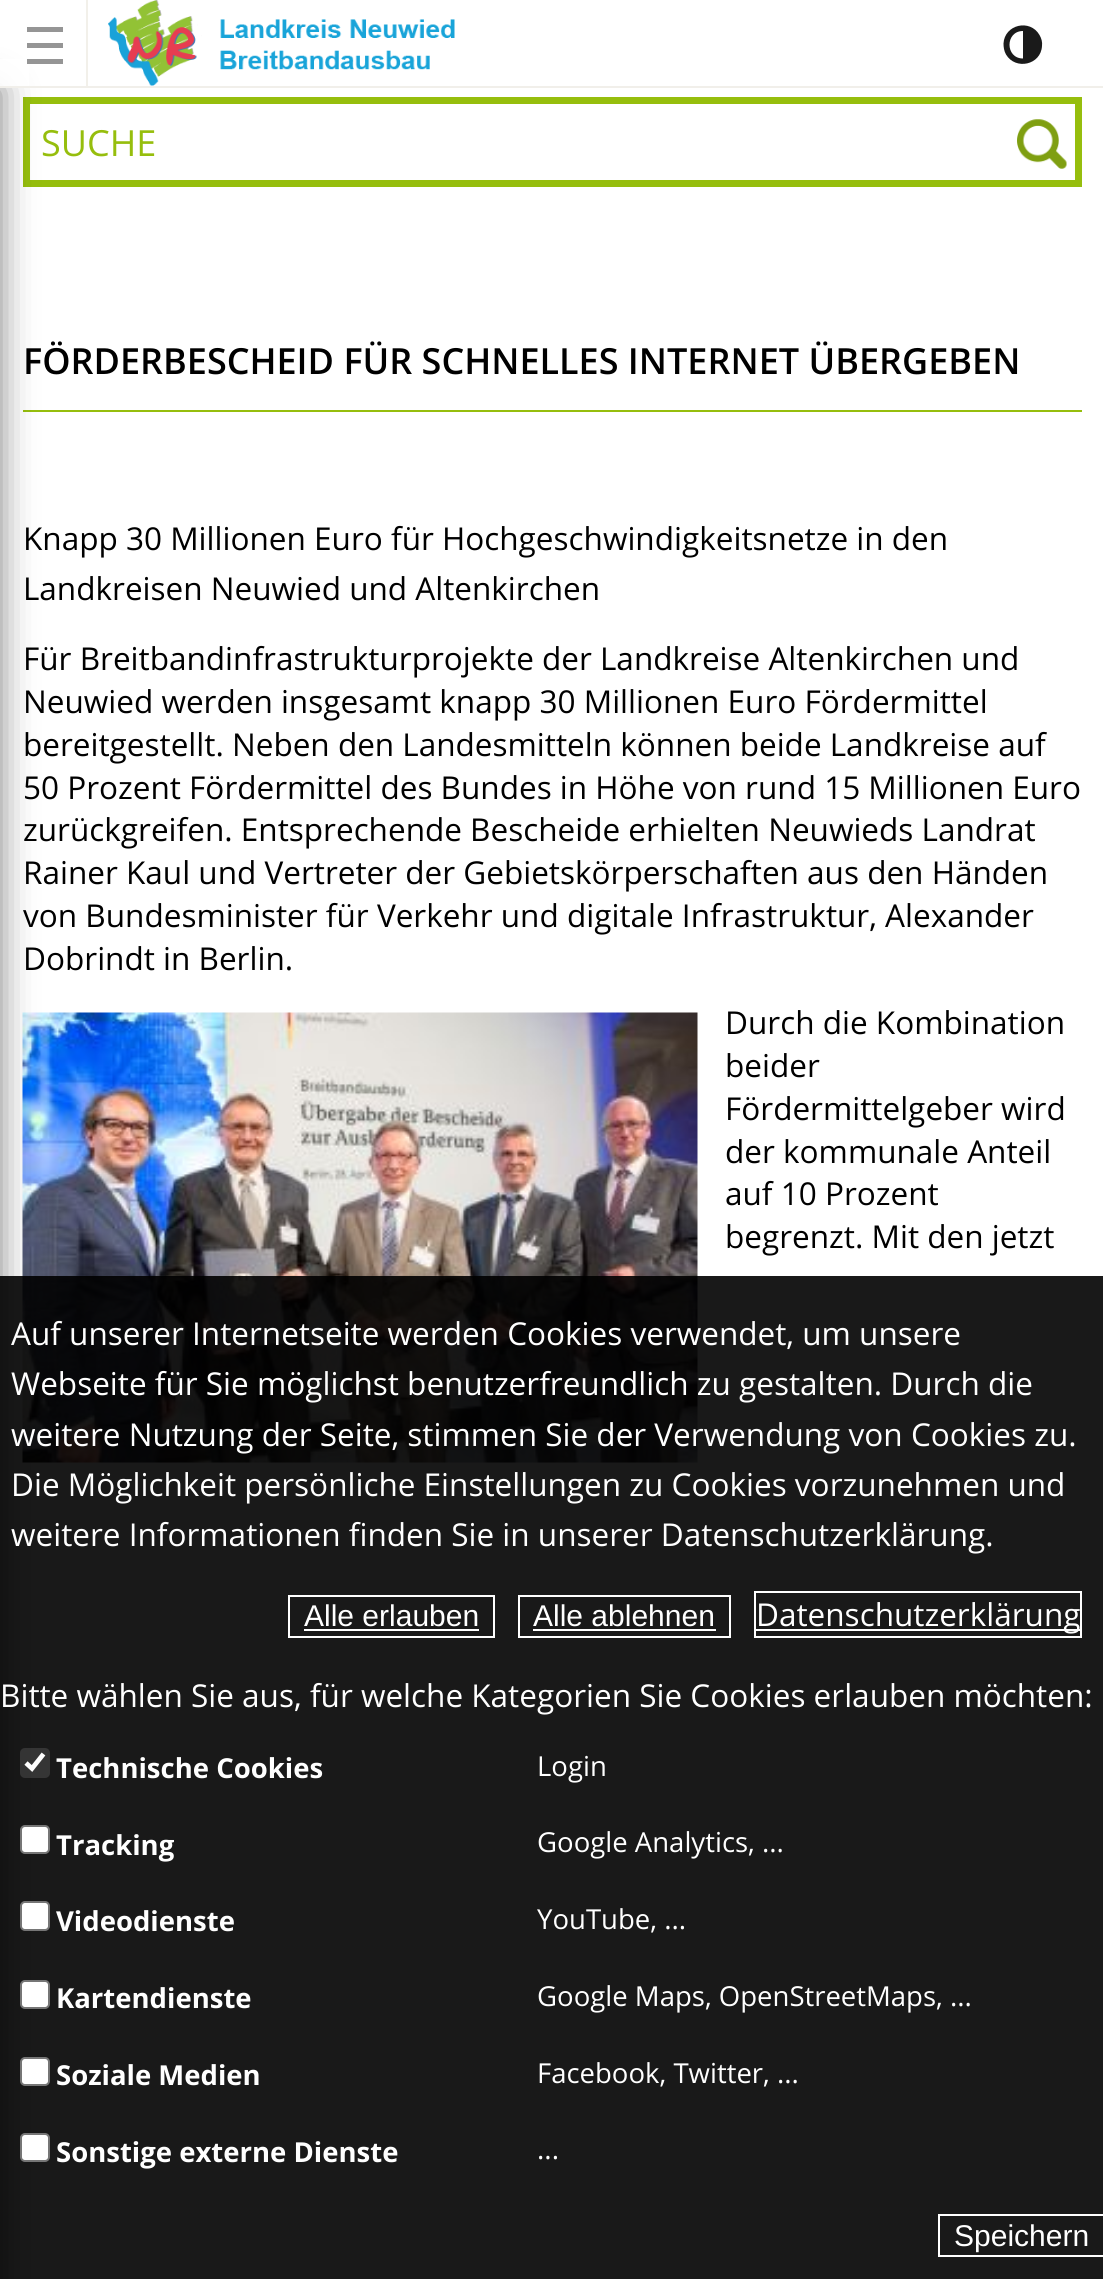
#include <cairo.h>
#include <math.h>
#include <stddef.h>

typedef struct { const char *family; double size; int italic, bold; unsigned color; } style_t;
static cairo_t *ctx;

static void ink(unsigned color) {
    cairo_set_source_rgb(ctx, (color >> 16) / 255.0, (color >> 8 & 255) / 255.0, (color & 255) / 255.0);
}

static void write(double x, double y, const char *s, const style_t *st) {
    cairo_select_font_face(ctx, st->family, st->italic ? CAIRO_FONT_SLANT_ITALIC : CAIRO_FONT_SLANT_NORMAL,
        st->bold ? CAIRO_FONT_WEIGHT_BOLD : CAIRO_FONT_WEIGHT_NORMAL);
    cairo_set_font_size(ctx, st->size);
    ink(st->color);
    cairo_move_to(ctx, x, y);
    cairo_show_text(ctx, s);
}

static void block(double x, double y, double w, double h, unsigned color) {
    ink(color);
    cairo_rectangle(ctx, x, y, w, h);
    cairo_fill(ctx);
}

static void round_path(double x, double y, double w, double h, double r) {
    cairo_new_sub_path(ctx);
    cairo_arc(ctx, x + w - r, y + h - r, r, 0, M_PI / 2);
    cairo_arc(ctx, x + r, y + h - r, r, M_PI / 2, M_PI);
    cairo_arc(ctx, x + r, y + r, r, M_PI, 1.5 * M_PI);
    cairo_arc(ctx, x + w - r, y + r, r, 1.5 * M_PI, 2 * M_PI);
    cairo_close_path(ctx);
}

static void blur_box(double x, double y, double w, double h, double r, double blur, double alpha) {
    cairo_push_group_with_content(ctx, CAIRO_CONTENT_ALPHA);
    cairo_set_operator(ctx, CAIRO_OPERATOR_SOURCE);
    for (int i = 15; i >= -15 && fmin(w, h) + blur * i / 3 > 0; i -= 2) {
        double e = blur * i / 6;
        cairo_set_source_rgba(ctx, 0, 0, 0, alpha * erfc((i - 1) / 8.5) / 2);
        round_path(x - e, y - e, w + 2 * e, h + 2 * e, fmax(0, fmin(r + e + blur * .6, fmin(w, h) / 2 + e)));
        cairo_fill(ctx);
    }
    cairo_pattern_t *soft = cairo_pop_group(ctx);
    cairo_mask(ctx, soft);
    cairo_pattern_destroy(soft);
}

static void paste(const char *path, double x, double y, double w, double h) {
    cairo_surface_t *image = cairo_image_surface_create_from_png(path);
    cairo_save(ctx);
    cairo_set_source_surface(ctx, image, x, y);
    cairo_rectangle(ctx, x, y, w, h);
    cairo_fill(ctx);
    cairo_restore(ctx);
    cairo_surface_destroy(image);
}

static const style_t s1 = {"Open Sans", 36, 0, 0, 0x96be0d};
static const style_t s2 = {"Open Sans SemiBold", 36, 0, 0, 0x000000};
static const style_t s3 = {"Open Sans", 31.5, 0, 0, 0x000000};
static const style_t s4 = {"Open Sans", 31.5, 0, 0, 0xffffff};
static const style_t s5 = {"Liberation Sans", 30, 0, 0, 0xffffff};
static const style_t s6 = {"Open Sans", 27.5, 0, 1, 0xffffff};
static const style_t s7 = {"Open Sans", 27.5, 0, 0, 0xffffff};

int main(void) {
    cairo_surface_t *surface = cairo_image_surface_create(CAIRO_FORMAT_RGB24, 1103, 2279);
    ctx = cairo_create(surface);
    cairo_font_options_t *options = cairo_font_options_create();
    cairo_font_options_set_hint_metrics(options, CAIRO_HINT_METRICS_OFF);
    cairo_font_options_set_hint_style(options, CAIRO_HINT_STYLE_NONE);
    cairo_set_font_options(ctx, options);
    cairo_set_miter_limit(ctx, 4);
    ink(0xffffff);
    cairo_paint(ctx);
    paste("pic2.png", 1017, 119, 50, 50);
    cairo_rectangle(ctx, 26.5, 100.5, 1052, 83);
    ink(0x96be0d);
    cairo_set_line_width(ctx, 7);
    cairo_stroke(ctx);
    block(23, 410, 1059, 2, 0x96be0d);
    paste("pic3.png", 22, 1012, 676, 451);
    ink(0x000000);
    blur_box(-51, 88, 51, 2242, 0, 17, 0.5);
    cairo_set_source_rgba(ctx, 1, 1, 1, 0.9);
    cairo_rectangle(ctx, 0, 59, 29, 29);
    cairo_fill(ctx);
    cairo_set_source_rgba(ctx, 0.941, 0.933, 0.91, 0.9);
    cairo_rectangle(ctx, 0, 86, 1103, 2);
    cairo_fill(ctx);
    block(86, 0, 2, 86, 0xf2f0ea);
    block(27, 59, 36, 5, 0x959595);
    block(27, 43, 36, 5, 0x959595);
    block(27, 27, 36, 5, 0x959595);
    paste("pic1.png", 108, 0, 347, 86);
    ink(0x1a1a1a);
    cairo_new_path(ctx);
    cairo_move_to(ctx, 1023, 58.5);
    cairo_line_to(ctx, 1023, 31);
    cairo_curve_to(ctx, 1005, 31, 1005, 58.5, 1023, 58.5);
    cairo_close_path(ctx);
    cairo_move_to(ctx, 1039.5, 35);
    cairo_curve_to(ctx, 1041.5, 38.5, 1042.5, 42, 1042, 46);
    cairo_curve_to(ctx, 1041, 65, 1015.5, 70.5, 1006, 54.5);
    cairo_curve_to(ctx, 1004, 51, 1003.5, 47, 1003.5, 43.5);
    cairo_curve_to(ctx, 1004.5, 24.5, 1030, 18.5, 1039.5, 35);
    cairo_close_path(ctx);
    cairo_fill(ctx);
    write(41, 156, "SUCHE", &s1);
    write(23, 374, "FÖRDERBESCHEID FÜR SCHNELLES INTERNET ÜBERGEBEN", &s2);
    write(23, 550, "Knapp 30 Millionen Euro für Hochgeschwindigkeitsnetze in den", &s3);
    write(23, 600, "Landkreisen Neuwied und Altenkirchen", &s3);
    write(23, 670, "Für Breitbandinfrastrukturprojekte der Landkreise Altenkirchen und", &s3);
    write(23, 713, "Neuwied werden insgesamt knapp 30 Millionen Euro Fördermittel", &s3);
    write(23, 756, "bereitgestellt. Neben den Landesmitteln können beide Landkreise auf", &s3);
    write(23, 799, "50 Prozent Fördermittel des Bundes in Höhe von rund 15 Millionen Euro", &s3);
    write(23, 841, "zurückgreifen. Entsprechende Bescheide erhielten Neuwieds Landrat", &s3);
    write(23, 884, "Rainer Kaul und Vertreter der Gebietskörperschaften aus den Händen", &s3);
    write(23, 927, "von Bundesminister für Verkehr und digitale Infrastruktur, Alexander", &s3);
    write(23, 970, "Dobrindt in Berlin.", &s3);
    write(725, 1034, "Durch die Kombination", &s3);
    write(725, 1077, "beider", &s3);
    write(725, 1120, "Fördermittelgeber wird", &s3);
    write(725, 1163, "der kommunale Anteil", &s3);
    write(725, 1205, "auf 10 Prozent", &s3);
    write(725, 1248, "begrenzt. Mit den jetzt", &s3);
    cairo_set_source_rgba(ctx, 0, 0, 0, 0.9);
    cairo_rectangle(ctx, 0, 1276, 1103, 1003);
    cairo_fill(ctx);
    write(11, 1345, "Auf unserer Internetseite werden Cookies verwendet, um unsere", &s4);
    write(11, 1395, "Webseite für Sie möglichst benutzerfreundlich zu gestalten. Durch die", &s4);
    write(11, 1446, "weitere Nutzung der Seite, stimmen Sie der Verwendung von Cookies zu.", &s4);
    write(11, 1496, "Die Möglichkeit persönliche Einstellungen zu Cookies vorzunehmen und", &s4);
    write(11, 1546, "weitere Informationen finden Sie in unserer Datenschutzerklärung.", &s4);
    cairo_rectangle(ctx, 289, 1596, 205, 41);
    cairo_set_line_width(ctx, 2);
    cairo_stroke(ctx);
    write(304, 1626, "Alle erlauben", &s5);
    block(304, 1629, 175, 2, 0xffffff);
    cairo_rectangle(ctx, 519, 1596, 211, 41);
    cairo_stroke(ctx);
    write(533, 1626, "Alle ablehnen", &s5);
    block(533, 1629, 183, 2, 0xffffff);
    cairo_rectangle(ctx, 755, 1592, 326, 45);
    cairo_stroke(ctx);
    block(756, 1629, 324, 2, 0xffffff);
    write(756, 1626, "Datenschutzerklärung", &s4);
    write(0, 1707, "Bitte wählen Sie aus, für welche Kategorien Sie Cookies erlauben möchten:", &s4);
    cairo_set_source_rgba(ctx, 0.463, 0.463, 0.463, 0.3);
    round_path(20, 1748, 30, 30, 5);
    cairo_fill(ctx);
    cairo_new_path(ctx);
    cairo_move_to(ctx, 26, 1763);
    cairo_line_to(ctx, 32, 1768.5);
    cairo_line_to(ctx, 43.5, 1754);
    ink(0xffffff);
    cairo_set_line_width(ctx, 4.7);
    cairo_stroke(ctx);
    write(56, 1778, "Technische Cookies", &s6);
    write(537, 1776, "Login", &s7);
    round_path(21, 1826, 28, 27, 4);
    cairo_fill_preserve(ctx);
    ink(0x767676);
    cairo_set_line_width(ctx, 2);
    cairo_stroke(ctx);
    write(56, 1855, "Tracking", &s6);
    write(537, 1852, "Google Analytics, ...", &s7);
    round_path(21, 1902, 28, 28, 4);
    cairo_fill_preserve(ctx);
    ink(0x767676);
    cairo_stroke(ctx);
    write(56, 1931, "Videodienste", &s6);
    write(537, 1929, "YouTube, ...", &s7);
    round_path(21, 1981, 28, 27, 4);
    cairo_fill_preserve(ctx);
    ink(0x767676);
    cairo_stroke(ctx);
    write(56, 2008, "Kartendienste", &s6);
    write(537, 2006, "Google Maps, OpenStreetMaps, ...", &s7);
    round_path(21, 2058, 28, 27, 4);
    cairo_fill_preserve(ctx);
    ink(0x767676);
    cairo_stroke(ctx);
    write(56, 2085, "Soziale Medien", &s6);
    write(537, 2083, "Facebook, Twitter, ...", &s7);
    round_path(21, 2134, 28, 27, 4);
    cairo_fill_preserve(ctx);
    ink(0x767676);
    cairo_stroke(ctx);
    write(56, 2162, "Sonstige externe Dienste", &s6);
    write(537, 2159, "...", &s7);
    cairo_rectangle(ctx, 939, 2215, 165, 41);
    cairo_stroke(ctx);
    write(954, 2246, "Speichern", &s5);
    cairo_surface_write_to_png(surface, "screenshot.png");
    cairo_font_options_destroy(options);
    cairo_destroy(ctx);
    cairo_surface_destroy(surface);
    return 0;
}
